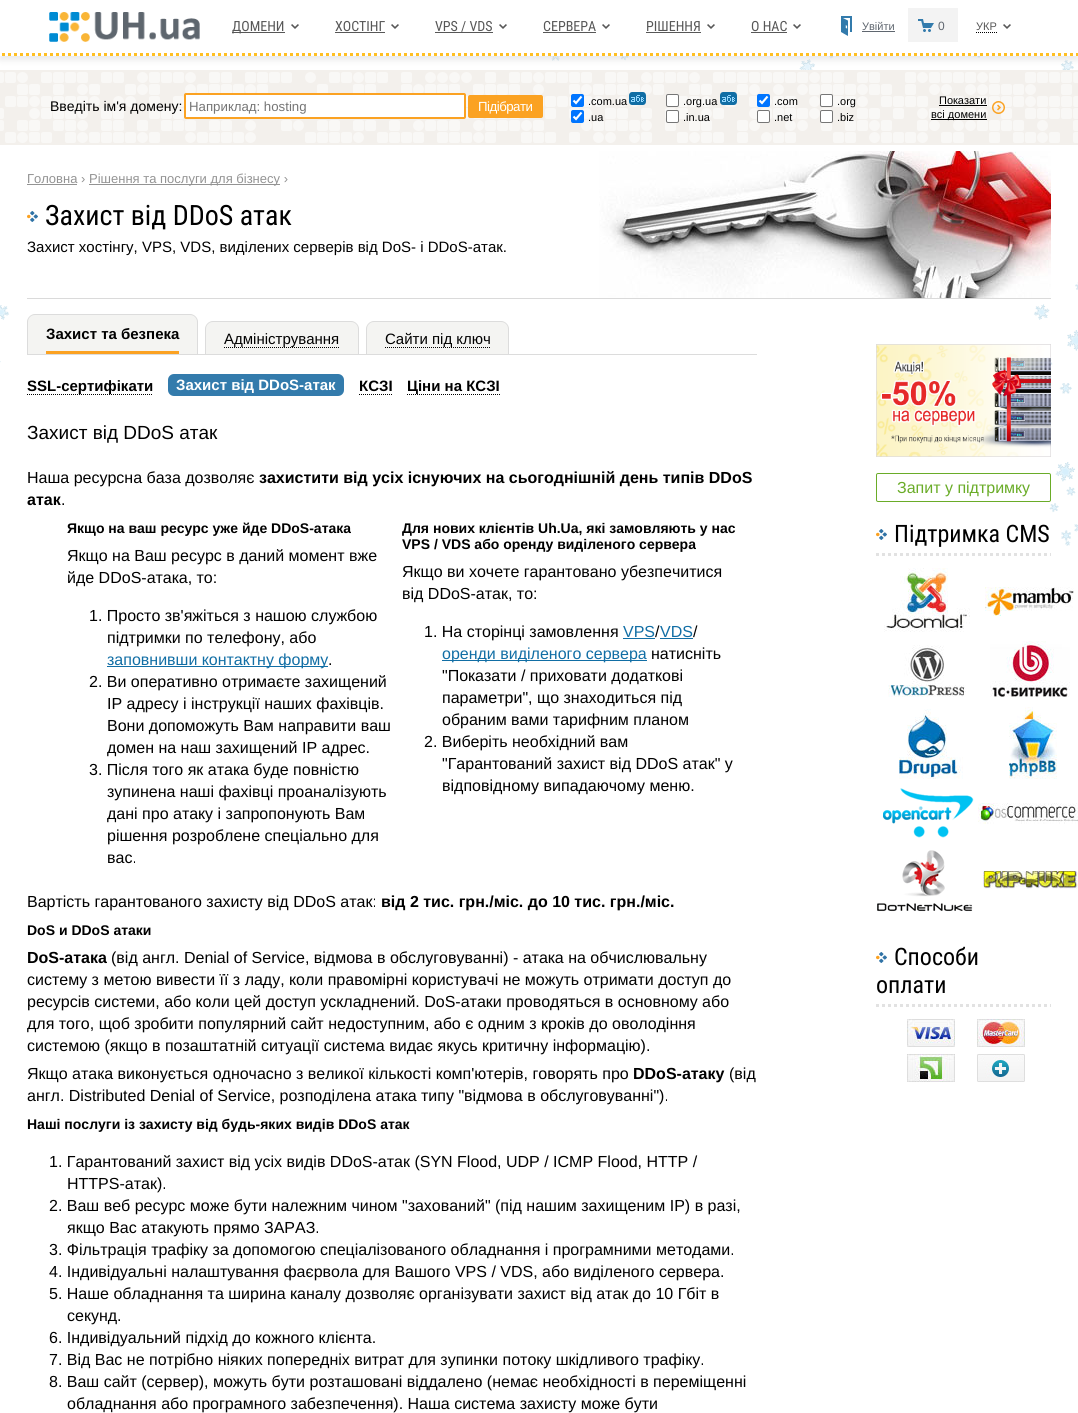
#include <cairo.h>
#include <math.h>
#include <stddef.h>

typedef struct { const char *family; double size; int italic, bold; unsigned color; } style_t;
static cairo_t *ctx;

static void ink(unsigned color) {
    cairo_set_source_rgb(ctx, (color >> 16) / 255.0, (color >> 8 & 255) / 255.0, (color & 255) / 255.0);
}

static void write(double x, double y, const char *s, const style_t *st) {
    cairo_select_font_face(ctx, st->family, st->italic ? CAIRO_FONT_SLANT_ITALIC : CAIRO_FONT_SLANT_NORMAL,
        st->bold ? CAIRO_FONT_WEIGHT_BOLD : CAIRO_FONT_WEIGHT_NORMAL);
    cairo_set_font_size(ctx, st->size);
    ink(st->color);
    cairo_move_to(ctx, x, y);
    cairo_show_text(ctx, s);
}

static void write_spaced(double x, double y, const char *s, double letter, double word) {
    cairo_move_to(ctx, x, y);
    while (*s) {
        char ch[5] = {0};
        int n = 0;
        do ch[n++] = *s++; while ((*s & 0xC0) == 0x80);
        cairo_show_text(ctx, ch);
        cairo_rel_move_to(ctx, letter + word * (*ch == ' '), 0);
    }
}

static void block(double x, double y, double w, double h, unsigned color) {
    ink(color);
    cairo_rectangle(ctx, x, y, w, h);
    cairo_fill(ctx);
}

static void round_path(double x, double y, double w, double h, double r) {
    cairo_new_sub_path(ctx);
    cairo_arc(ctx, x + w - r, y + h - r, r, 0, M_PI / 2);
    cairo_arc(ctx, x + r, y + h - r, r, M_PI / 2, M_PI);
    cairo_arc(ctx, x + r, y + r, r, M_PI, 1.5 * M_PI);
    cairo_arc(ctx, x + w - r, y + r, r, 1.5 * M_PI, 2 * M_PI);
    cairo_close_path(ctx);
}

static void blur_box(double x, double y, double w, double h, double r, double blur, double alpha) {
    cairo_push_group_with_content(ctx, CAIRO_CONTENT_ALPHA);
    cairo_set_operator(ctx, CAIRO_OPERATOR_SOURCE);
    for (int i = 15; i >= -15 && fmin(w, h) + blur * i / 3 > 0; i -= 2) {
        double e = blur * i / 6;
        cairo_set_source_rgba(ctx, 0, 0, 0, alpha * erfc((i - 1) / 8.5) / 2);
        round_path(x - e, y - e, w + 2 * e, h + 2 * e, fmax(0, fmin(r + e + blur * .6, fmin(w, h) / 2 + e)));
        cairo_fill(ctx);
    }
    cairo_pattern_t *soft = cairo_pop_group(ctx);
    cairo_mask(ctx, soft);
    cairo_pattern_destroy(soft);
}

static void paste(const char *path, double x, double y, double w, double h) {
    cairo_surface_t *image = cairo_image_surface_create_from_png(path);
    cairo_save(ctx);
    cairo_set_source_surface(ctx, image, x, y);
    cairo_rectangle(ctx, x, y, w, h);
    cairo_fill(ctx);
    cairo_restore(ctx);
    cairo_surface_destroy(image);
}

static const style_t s1 = {"Roboto Condensed", 14, 0, 0, 0x575757};
static const style_t s2 = {"Liberation Sans", 11, 0, 0, 0x5f666f};
static const style_t s3 = {"Liberation Sans", 12, 0, 0, 0x5f666f};
static const style_t s4 = {"Liberation Sans", 11, 0, 0, 0x575757};
static const style_t s5 = {"Liberation Sans", 14, 0, 0, 0x000000};
static const style_t s6 = {"Liberation Sans", 13.25, 0, 0, 0x757575};
static const style_t s7 = {"Liberation Sans", 11, 0, 0, 0x000000};
static const style_t s8 = {"Liberation Sans", 13, 0, 0, 0x939393};
static const style_t s9 = {"Roboto Condensed", 28, 0, 0, 0x000000};
static const style_t s10 = {"Liberation Sans", 15, 0, 0, 0x000000};
static const style_t s11 = {"Liberation Sans", 15, 0, 1, 0x000000};
static const style_t s12 = {"Liberation Sans", 15, 0, 1, 0xffffff};
static const style_t s13 = {"Liberation Sans", 19, 0, 0, 0x000000};
static const style_t s14 = {"Liberation Sans", 16, 0, 0, 0x000000};
static const style_t s15 = {"Liberation Sans", 16, 0, 1, 0x000000};
static const style_t s16 = {"Liberation Sans", 14, 0, 1, 0x000000};
static const style_t s17 = {"Liberation Sans", 16, 0, 0, 0x116ea5};
static const style_t s18 = {"Liberation Sans", 16, 0, 0, 0x6aac28};
static const style_t s19 = {"Roboto Condensed", 24, 0, 0, 0x000000};

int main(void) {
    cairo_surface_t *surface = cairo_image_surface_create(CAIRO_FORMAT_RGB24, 1078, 1413);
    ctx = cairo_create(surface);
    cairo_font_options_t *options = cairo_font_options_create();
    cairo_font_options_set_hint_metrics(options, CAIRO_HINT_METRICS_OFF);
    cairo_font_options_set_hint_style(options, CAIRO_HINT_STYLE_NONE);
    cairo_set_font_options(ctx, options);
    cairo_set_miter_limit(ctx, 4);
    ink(0xffffff);
    cairo_paint(ctx);
    paste("pic1.png", 0, 56, 1078, 490);
    ink(0xc8c8c8);
    blur_box(0, 4, 1078, 56, 0, 3, 0.4);
    block(0, 0, 1078, 56, 0xffffff);
    paste("pic2.png", 2, 53, 1076, 3);
    paste("pic3.png", 49, 12, 151, 30);
    paste("pic4.png", 291, 24, 8, 5);
    block(232, 32, 53, 1, 0x575757);
    write(232, 31, "ДОМЕНИ", &s1);
    paste("pic4.png", 391, 24, 8, 5);
    write(335, 31, "ХОСТIНГ", &s1);
    block(335, 32, 50, 1, 0x575757);
    paste("pic4.png", 499, 24, 8, 5);
    write(435, 31, "VPS / VDS", &s1);
    block(435, 32, 58, 1, 0x575757);
    paste("pic4.png", 602, 24, 8, 5);
    write(543, 31, "СЕРВЕРА", &s1);
    block(543, 32, 53, 1, 0x575757);
    paste("pic4.png", 707, 24, 8, 5);
    write(646, 31, "РІШЕННЯ", &s1);
    block(646, 32, 55, 1, 0x575757);
    paste("pic4.png", 793, 24, 8, 5);
    write(751, 31, "О НАС", &s1);
    block(751, 32, 36, 1, 0x575757);
    paste("pic5.png", 841, 16, 11, 20);
    write(862, 30, "Увійти", &s2);
    block(862, 31, 33, 1, 0x5f666f);
    block(908, 8, 50, 34, 0xf3f3f3);
    paste("pic6.png", 918, 19, 16, 13);
    write(938, 30, "0", &s3);
    paste("pic4.png", 1003, 24, 8, 5);
    write(976, 30, "УКР", &s4);
    cairo_new_path(ctx);
    cairo_move_to(ctx, 976, 32.5);
    cairo_line_to(ctx, 997, 32.5);
    ink(0x000000);
    cairo_set_line_width(ctx, 1);
    cairo_set_dash(ctx, (double[]){1, 1}, 2, 0);
    cairo_stroke(ctx);
    paste("pic7.png", 0, 70, 1078, 75);
    write(50, 111, "Введіть ім'я домену:", &s5);
    ink(0xffffff);
    round_path(185, 94, 280, 24, 1);
    cairo_fill_preserve(ctx);
    ink(0xfba222);
    cairo_set_line_width(ctx, 2);
    cairo_set_dash(ctx, NULL, 0, 0);
    cairo_stroke(ctx);
    write(189, 111, "Наприклад: hosting", &s6);
    ink(0xfba222);
    round_path(468, 95, 75, 23, 2);
    cairo_fill(ctx);
    ink(0xffffff);
    write_spaced(478, 111, "Підібрати", -0.5, 0);
    ink(0x0075ff);
    round_path(571, 94, 13, 13, 2);
    cairo_fill(ctx);
    cairo_new_path(ctx);
    cairo_move_to(ctx, 573.5, 100.5);
    cairo_line_to(ctx, 576, 103);
    cairo_line_to(ctx, 581.5, 96.5);
    ink(0xffffff);
    cairo_set_line_width(ctx, 2.1);
    cairo_stroke(ctx);
    write(588, 105, ".com.ua", &s7);
    paste("pic8.png", 629, 92, 17, 13);
    ink(0xffffff);
    round_path(666.5, 94.5, 12, 12, 1.5);
    cairo_fill_preserve(ctx);
    ink(0x767676);
    cairo_set_line_width(ctx, 1);
    cairo_stroke(ctx);
    write(683, 105, ".org.ua", &s7);
    paste("pic9.png", 720, 92, 17, 13);
    ink(0x0075ff);
    round_path(757, 94, 13, 13, 2);
    cairo_fill(ctx);
    cairo_new_path(ctx);
    cairo_move_to(ctx, 759.5, 100.5);
    cairo_line_to(ctx, 762, 103);
    cairo_line_to(ctx, 767.5, 96.5);
    ink(0xffffff);
    cairo_set_line_width(ctx, 2.1);
    cairo_stroke(ctx);
    write(774, 105, ".com", &s7);
    ink(0xffffff);
    round_path(820.5, 94.5, 12, 12, 1.5);
    cairo_fill_preserve(ctx);
    ink(0x767676);
    cairo_set_line_width(ctx, 1);
    cairo_stroke(ctx);
    write(837, 105, ".org", &s7);
    ink(0x0075ff);
    round_path(571, 110, 13, 13, 2);
    cairo_fill(ctx);
    cairo_new_path(ctx);
    cairo_move_to(ctx, 573.5, 116.5);
    cairo_line_to(ctx, 576, 119);
    cairo_line_to(ctx, 581.5, 112.5);
    ink(0xffffff);
    cairo_set_line_width(ctx, 2.1);
    cairo_stroke(ctx);
    write(588, 121, ".ua", &s7);
    ink(0xffffff);
    round_path(666.5, 110.5, 12, 12, 1.5);
    cairo_fill_preserve(ctx);
    ink(0x767676);
    cairo_set_line_width(ctx, 1);
    cairo_stroke(ctx);
    write(683, 121, ".in.ua", &s7);
    ink(0xffffff);
    round_path(757.5, 110.5, 12, 12, 1.5);
    cairo_fill_preserve(ctx);
    ink(0x767676);
    cairo_stroke(ctx);
    write(774, 121, ".net", &s7);
    ink(0xffffff);
    round_path(820.5, 110.5, 12, 12, 1.5);
    cairo_fill_preserve(ctx);
    ink(0x767676);
    cairo_stroke(ctx);
    write(837, 121, ".biz", &s7);
    paste("pic10.png", 992, 101, 13, 13);
    write(939, 104, "Показати", &s7);
    block(939, 105, 48, 1, 0x000000);
    block(931, 119, 56, 1, 0x000000);
    write(931, 118, "всі домени", &s7);
    paste("pic11.png", 599, 151, 452, 147);
    block(27, 298, 1024, 1, 0xdadada);
    write(27, 183, "Головна ›", &s8);
    block(27, 184, 50, 1, 0x939393);
    block(89, 184, 191, 1, 0x939393);
    write(89, 183, "Рішення та послуги для бізнесу ›", &s8);
    paste("pic12.png", 27, 211, 11, 11);
    write(45, 225, "Захист від DDoS атак", &s9);
    write(27, 252, "Захист хостінгу, VPS, VDS, виділених серверів від DoS- і DDoS-атак.", &s10);
    block(27, 354, 730, 1, 0xdcdcdc);
    ink(0xf4f4f2);
    cairo_new_path(ctx);
    cairo_move_to(ctx, 35, 314);
    cairo_line_to(ctx, 190, 314);
    cairo_curve_to(ctx, 194.5, 314, 198, 317.5, 198, 322);
    cairo_line_to(ctx, 198, 354);
    cairo_line_to(ctx, 27, 354);
    cairo_line_to(ctx, 27, 322);
    cairo_curve_to(ctx, 27, 317.5, 30.5, 314, 35, 314);
    cairo_close_path(ctx);
    cairo_fill(ctx);
    ink(0xdcdcdc);
    cairo_set_fill_rule(ctx, CAIRO_FILL_RULE_EVEN_ODD);
    cairo_new_path(ctx);
    cairo_move_to(ctx, 35, 314);
    cairo_line_to(ctx, 190, 314);
    cairo_curve_to(ctx, 194, 314, 198, 318, 198, 322);
    cairo_line_to(ctx, 198, 354);
    cairo_line_to(ctx, 27, 354);
    cairo_line_to(ctx, 27, 322);
    cairo_curve_to(ctx, 27, 318, 31, 314, 35, 314);
    cairo_close_path(ctx);
    cairo_move_to(ctx, 35, 315);
    cairo_line_to(ctx, 190, 315);
    cairo_curve_to(ctx, 194, 315, 197, 318, 197, 322);
    cairo_line_to(ctx, 197, 354);
    cairo_line_to(ctx, 28, 354);
    cairo_line_to(ctx, 28, 322);
    cairo_curve_to(ctx, 28, 318, 31, 315, 35, 315);
    cairo_close_path(ctx);
    cairo_fill(ctx);
    block(46, 351, 133, 3, 0xfba222);
    write(46, 339, "Захист та безпека", &s11);
    ink(0xf4f4f2);
    cairo_new_path(ctx);
    cairo_move_to(ctx, 213, 321);
    cairo_line_to(ctx, 351, 321);
    cairo_curve_to(ctx, 355.5, 321, 359, 324.5, 359, 329);
    cairo_line_to(ctx, 359, 354);
    cairo_line_to(ctx, 205, 354);
    cairo_line_to(ctx, 205, 329);
    cairo_curve_to(ctx, 205, 324.5, 208.5, 321, 213, 321);
    cairo_close_path(ctx);
    cairo_fill(ctx);
    ink(0xdcdcdc);
    cairo_new_path(ctx);
    cairo_move_to(ctx, 213, 321);
    cairo_line_to(ctx, 351, 321);
    cairo_curve_to(ctx, 355, 321, 359, 325, 359, 329);
    cairo_line_to(ctx, 359, 354);
    cairo_line_to(ctx, 205, 354);
    cairo_line_to(ctx, 205, 329);
    cairo_curve_to(ctx, 205, 325, 209, 321, 213, 321);
    cairo_close_path(ctx);
    cairo_move_to(ctx, 213, 322);
    cairo_line_to(ctx, 351, 322);
    cairo_curve_to(ctx, 355, 322, 358, 325, 358, 329);
    cairo_line_to(ctx, 358, 354);
    cairo_line_to(ctx, 206, 354);
    cairo_line_to(ctx, 206, 329);
    cairo_curve_to(ctx, 206, 325, 209, 322, 213, 322);
    cairo_close_path(ctx);
    cairo_fill(ctx);
    cairo_new_path(ctx);
    cairo_move_to(ctx, 224, 347.5);
    cairo_line_to(ctx, 340, 347.5);
    ink(0x000000);
    cairo_set_dash(ctx, (double[]){1, 1}, 2, 0);
    cairo_stroke(ctx);
    write(224, 344, "Адміністрування", &s10);
    ink(0xf4f4f2);
    cairo_new_path(ctx);
    cairo_move_to(ctx, 374, 321);
    cairo_line_to(ctx, 501, 321);
    cairo_curve_to(ctx, 505.5, 321, 509, 324.5, 509, 329);
    cairo_line_to(ctx, 509, 354);
    cairo_line_to(ctx, 366, 354);
    cairo_line_to(ctx, 366, 329);
    cairo_curve_to(ctx, 366, 324.5, 369.5, 321, 374, 321);
    cairo_close_path(ctx);
    cairo_fill(ctx);
    ink(0xdcdcdc);
    cairo_new_path(ctx);
    cairo_move_to(ctx, 374, 321);
    cairo_line_to(ctx, 501, 321);
    cairo_curve_to(ctx, 505, 321, 509, 325, 509, 329);
    cairo_line_to(ctx, 509, 354);
    cairo_line_to(ctx, 366, 354);
    cairo_line_to(ctx, 366, 329);
    cairo_curve_to(ctx, 366, 325, 370, 321, 374, 321);
    cairo_close_path(ctx);
    cairo_move_to(ctx, 374, 322);
    cairo_line_to(ctx, 501, 322);
    cairo_curve_to(ctx, 505, 322, 508, 325, 508, 329);
    cairo_line_to(ctx, 508, 354);
    cairo_line_to(ctx, 367, 354);
    cairo_line_to(ctx, 367, 329);
    cairo_curve_to(ctx, 367, 325, 370, 322, 374, 322);
    cairo_close_path(ctx);
    cairo_fill(ctx);
    write(385, 344, "Сайти під ключ", &s10);
    cairo_new_path(ctx);
    cairo_move_to(ctx, 385, 347.5);
    cairo_line_to(ctx, 490, 347.5);
    cairo_stroke(ctx);
    cairo_new_path(ctx);
    cairo_move_to(ctx, 27, 394.5);
    cairo_line_to(ctx, 153, 394.5);
    cairo_stroke(ctx);
    write(27, 391, "SSL-сертифікати", &s11);
    ink(0x337bac);
    round_path(168, 374, 176, 22, 6);
    cairo_fill(ctx);
    write(176, 390, "Захист від DDoS-атак", &s12);
    write(359, 391, "КСЗІ", &s11);
    cairo_new_path(ctx);
    cairo_move_to(ctx, 359, 394.5);
    cairo_line_to(ctx, 392, 394.5);
    cairo_stroke(ctx);
    write(407, 391, "Ціни на КСЗІ", &s11);
    cairo_new_path(ctx);
    cairo_move_to(ctx, 407, 394.5);
    cairo_line_to(ctx, 500, 394.5);
    cairo_stroke(ctx);
    write(27, 439, "Захист від DDoS атак", &s13);
    write(27, 483, "Наша ресурсна база дозволяє", &s14);
    write(259, 483, "захистити від усіх існуючих на сьогоднішній день типів DDoS", &s15);
    write(27, 505, "атак", &s15);
    write(61, 505, ".", &s14);
    write(67, 533, "Якщо на ваш ресурс уже йде DDoS-атака", &s16);
    write(67, 561, "Якщо на Ваш ресурс в даний момент вже", &s14);
    write(67, 583, "йде DDoS-атака, то:", &s14);
    write(89, 621, "1. Просто зв'яжіться з нашою службою", &s14);
    write(107, 643, "підтримки по телефону, або", &s14);
    block(107, 666, 221, 1, 0x116ea5);
    write(107, 665, "заповнивши контактну форму", &s17);
    write(328, 665, ".", &s14);
    write(89, 687, "2. Ви оперативно отримаєте захищений", &s14);
    write(107, 709, "IP адресу і інструкції наших фахівців.", &s14);
    write(107, 731, "Вони допоможуть Вам направити ваш", &s14);
    write(107, 753, "домен на наш захищений IP адрес.", &s14);
    write(89, 775, "3. Після того як атака буде повністю", &s14);
    write(107, 797, "зупинена наші фахівці проаналізують", &s14);
    write(107, 819, "дані про атаку і запропонують Вам", &s14);
    write(107, 841, "рішення розроблене спеціально для", &s14);
    write(107, 863, "вас.", &s14);
    write(402, 533, "Для нових клієнтів Uh.Ua, які замовляють у нас", &s16);
    write(402, 549, "VPS / VDS або оренду виділеного сервера", &s16);
    write(402, 577, "Якщо ви хочете гарантовано убезпечитися", &s14);
    write(402, 599, "від DDoS-атак, то:", &s14);
    write(424, 637, "1. На сторінці замовлення", &s14);
    write(623, 637, "VPS", &s17);
    block(623, 638, 32, 1, 0x116ea5);
    write(655, 637, "/", &s14);
    write(660, 637, "VDS", &s17);
    block(660, 638, 33, 1, 0x116ea5);
    write(693, 637, "/", &s14);
    block(442, 660, 205, 1, 0x116ea5);
    write(442, 659, "оренди виділеного сервера", &s17);
    write(651, 659, "натисніть", &s14);
    write(442, 681, "\"Показати / приховати додаткові", &s14);
    write(442, 703, "параметри\", що знаходиться під", &s14);
    write(442, 725, "обраним вами тарифним планом", &s14);
    write(424, 747, "2. Виберіть необхідний вам", &s14);
    write(442, 769, "\"Гарантований захист від DDoS атак\" у", &s14);
    write(442, 791, "відповідному випадаючому меню.", &s14);
    write(27, 907, "Вартість гарантованого захисту від DDoS атак:", &s14);
    write(381, 907, "від 2 тис. грн./міс. до 10 тис. грн./міс.", &s15);
    write(27, 935, "DoS и DDoS атаки", &s16);
    write(27, 963, "DoS-атака", &s15);
    write(111, 963, "(від англ. Denial of Service, відмова в обслуговуванні) - атака на обчислювальну", &s14);
    write(27, 985, "систему з метою вивести її з ладу, коли правомірні користувачі не можуть отримати доступ до", &s14);
    write(27, 1007, "ресурсів системи, або коли цей доступ ускладнений. DoS-атаки проводяться в основному або", &s14);
    write(27, 1029, "для того, щоб зробити популярний сайт недоступним, або є одним з кроків до оволодіння", &s14);
    write(27, 1051, "системою (якщо в позаштатній ситуації система видає якусь критичну інформацію).", &s14);
    write(27, 1079, "Якщо атака виконується одночасно з великої кількості комп'ютерів, говорять про", &s14);
    write(633, 1079, "DDoS-атаку", &s15);
    write(729, 1079, "(від", &s14);
    write(27, 1101, "англ. Distributed Denial of Service, розподілена атака типу \"відмова в обслуговуванні\").", &s14);
    write(27, 1129, "Наші послуги із захисту від будь-яких видів DDoS атак", &s16);
    write(49, 1167, "1. Гарантований захист від усіх видів DDoS-атак (SYN Flood, UDP / ICMP Flood, HTTP /", &s14);
    write(67, 1189, "HTTPS-атак).", &s14);
    write(49, 1211, "2. Ваш веб ресурс може бути належним чином \"захований\" (під нашим захищеним IP) в разі,", &s14);
    write(67, 1233, "якщо Вас атакують прямо ЗАРАЗ.", &s14);
    write(49, 1255, "3. Фільтрація трафіку за допомогою спеціалізованого обладнання і програмними методами.", &s14);
    write(49, 1277, "4. Індивідуальні налаштування фаєрвола для Вашого VPS / VDS, або виділеного сервера.", &s14);
    write(49, 1299, "5. Наше обладнання та ширина каналу дозволяє організувати захист від атак до 10 Гбіт в", &s14);
    write(67, 1321, "секунд.", &s14);
    write(49, 1343, "6. Індивідуальний підхід до кожного клієнта.", &s14);
    write(49, 1365, "7. Від Вас не потрібно ніяких попередніх витрат для зупинки потоку шкідливого трафіку.", &s14);
    write(49, 1387, "8. Ваш сайт (сервер), можуть бути розташовані віддалено (немає необхідності в переміщенні", &s14);
    write(67, 1409, "обладнання або програмного забезпечення). Наша система захисту може бути", &s14);
    paste("pic13.png", 876, 344, 175, 113);
    round_path(876.5, 473.5, 174, 28, 1.5);
    ink(0x6aac28);
    cairo_set_dash(ctx, NULL, 0, 0);
    cairo_stroke(ctx);
    write(897, 493, "Запит у підтримку", &s18);
    paste("pic14.png", 876, 553, 175, 3);
    paste("pic12.png", 876, 529, 11, 11);
    write(894, 542, "Підтримка CMS", &s19);
    paste("pic15.png", 884, 568, 86, 64);
    paste("pic16.png", 985, 587, 89, 29);
    paste("pic17.png", 888, 645, 78, 52);
    paste("pic18.png", 990, 641, 80, 56);
    paste("pic19.png", 899, 709, 64, 70);
    paste("pic20.png", 1009, 707, 48, 72);
    paste("pic21.png", 883, 788, 91, 50);
    paste("pic22.png", 978, 803, 100, 21);
    paste("pic23.png", 877, 850, 96, 62);
    paste("pic24.png", 983, 871, 95, 18);
    paste("pic14.png", 876, 1004, 175, 3);
    paste("pic12.png", 876, 952, 11, 11);
    write(894, 965, "Способи", &s19);
    write(876, 993, "оплати", &s19);
    paste("pic25.png", 907, 1019, 48, 28);
    paste("pic26.png", 977, 1019, 48, 28);
    paste("pic27.png", 907, 1054, 48, 28);
    paste("pic28.png", 977, 1054, 48, 28);
    cairo_surface_write_to_png(surface, "screenshot.png");
    cairo_font_options_destroy(options);
    cairo_destroy(ctx);
    cairo_surface_destroy(surface);
    return 0;
}
